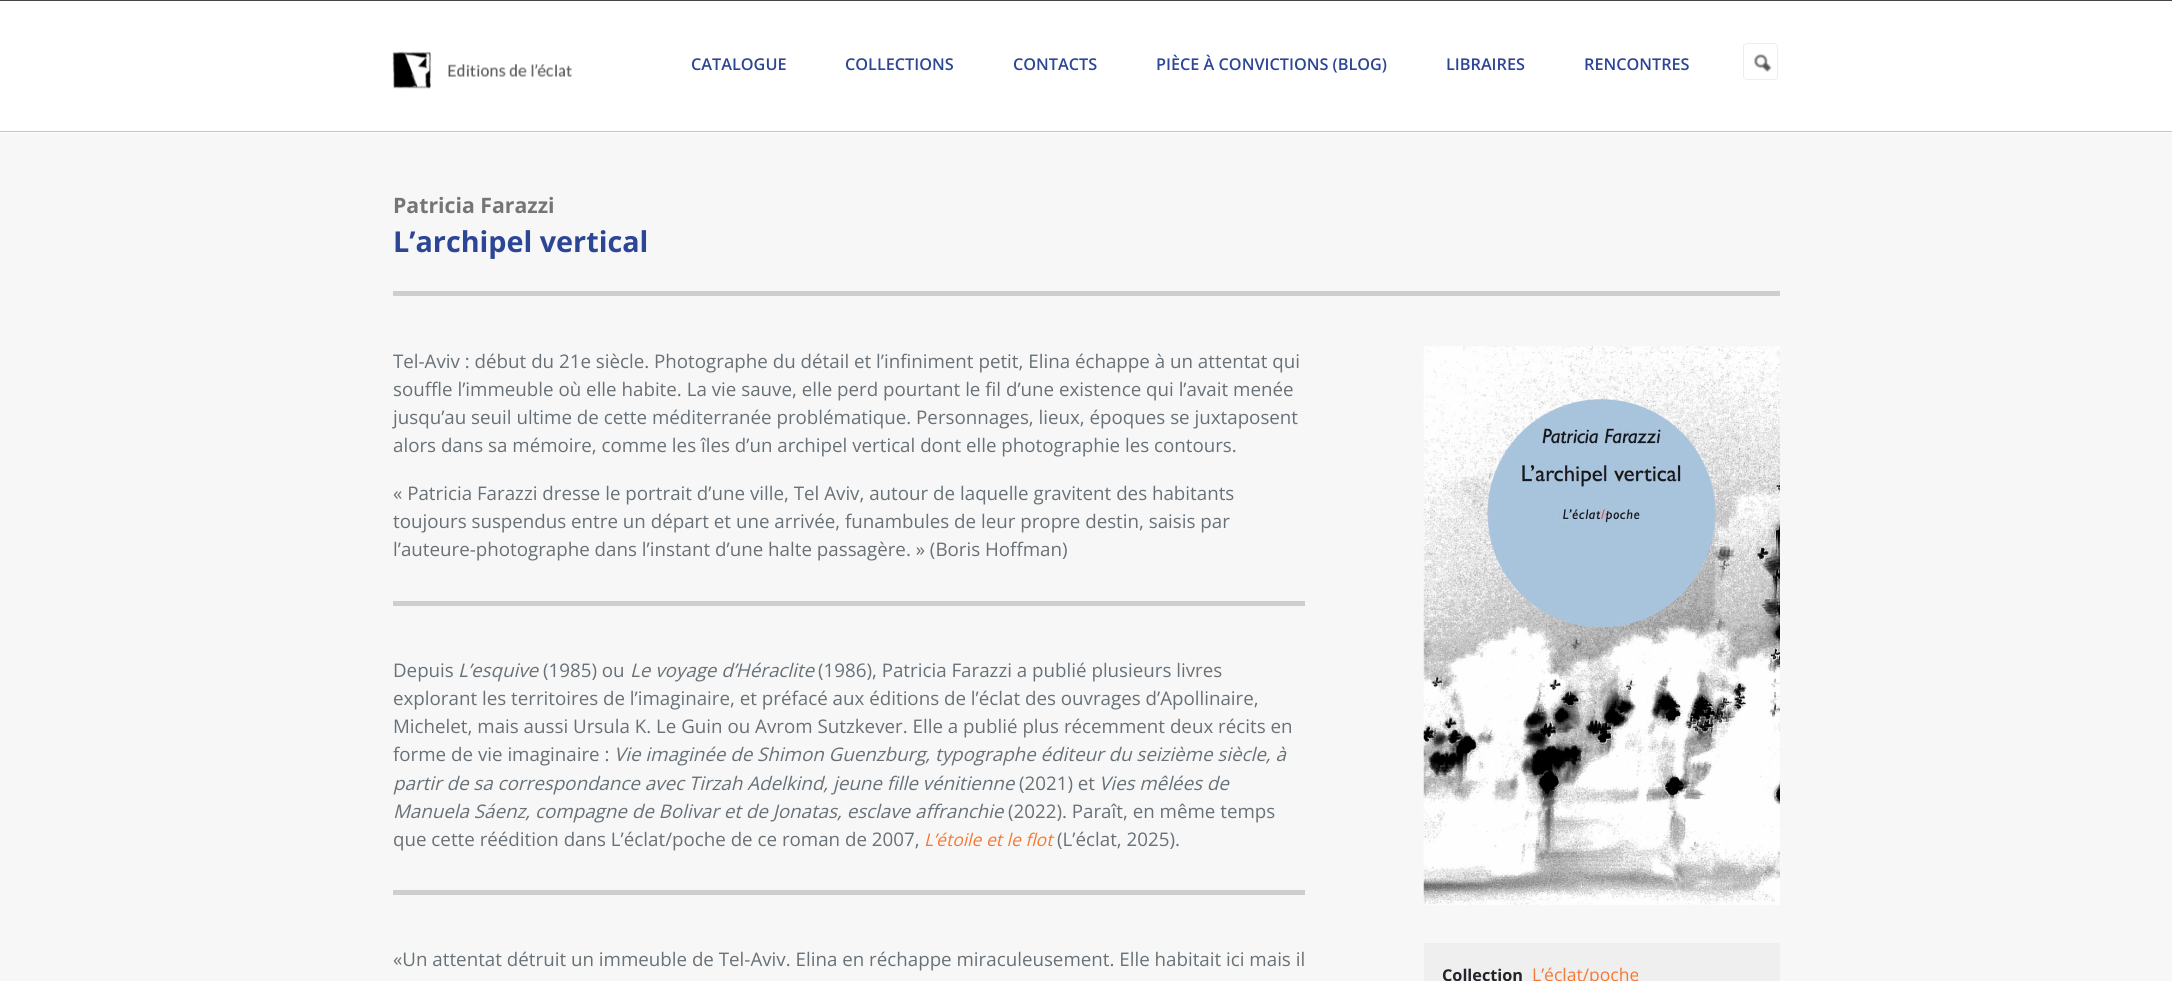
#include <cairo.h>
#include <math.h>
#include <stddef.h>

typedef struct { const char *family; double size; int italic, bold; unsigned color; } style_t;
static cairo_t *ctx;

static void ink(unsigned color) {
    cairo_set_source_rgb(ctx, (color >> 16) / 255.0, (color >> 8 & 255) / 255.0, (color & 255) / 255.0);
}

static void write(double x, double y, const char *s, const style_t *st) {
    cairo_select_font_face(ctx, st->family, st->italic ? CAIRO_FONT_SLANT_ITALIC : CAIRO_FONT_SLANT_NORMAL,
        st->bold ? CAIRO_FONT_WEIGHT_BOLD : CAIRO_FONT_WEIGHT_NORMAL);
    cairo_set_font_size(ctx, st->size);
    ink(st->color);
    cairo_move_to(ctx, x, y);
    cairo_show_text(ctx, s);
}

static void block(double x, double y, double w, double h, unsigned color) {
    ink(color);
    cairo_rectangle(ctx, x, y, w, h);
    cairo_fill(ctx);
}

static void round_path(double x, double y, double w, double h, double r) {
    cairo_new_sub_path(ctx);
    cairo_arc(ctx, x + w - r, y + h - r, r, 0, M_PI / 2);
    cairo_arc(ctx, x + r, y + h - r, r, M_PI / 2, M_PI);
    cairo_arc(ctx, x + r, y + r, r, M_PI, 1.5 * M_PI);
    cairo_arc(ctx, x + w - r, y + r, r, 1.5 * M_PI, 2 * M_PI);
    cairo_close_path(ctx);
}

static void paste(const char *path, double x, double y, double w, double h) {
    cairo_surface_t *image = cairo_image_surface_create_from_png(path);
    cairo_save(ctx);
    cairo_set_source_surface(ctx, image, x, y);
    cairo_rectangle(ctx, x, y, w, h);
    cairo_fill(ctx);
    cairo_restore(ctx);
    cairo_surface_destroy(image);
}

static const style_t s1 = {"Open Sans SemiBold", 16.25, 0, 0, 0x2c4595};
static const style_t s2 = {"Open Sans", 21.25, 0, 1, 0x757575};
static const style_t s3 = {"Open Sans", 28.75, 0, 1, 0x2c4595};
static const style_t s4 = {"Open Sans", 18.75, 0, 0, 0x687177};
static const style_t s5 = {"Open Sans", 18.75, 1, 0, 0x687177};
static const style_t s6 = {"Open Sans", 17.5, 1, 0, 0xf77834};
static const style_t s7 = {"Open Sans", 16.25, 0, 1, 0x212529};
static const style_t s8 = {"Open Sans", 17.5, 0, 0, 0xf77834};

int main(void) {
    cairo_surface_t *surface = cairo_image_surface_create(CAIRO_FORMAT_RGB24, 2172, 981);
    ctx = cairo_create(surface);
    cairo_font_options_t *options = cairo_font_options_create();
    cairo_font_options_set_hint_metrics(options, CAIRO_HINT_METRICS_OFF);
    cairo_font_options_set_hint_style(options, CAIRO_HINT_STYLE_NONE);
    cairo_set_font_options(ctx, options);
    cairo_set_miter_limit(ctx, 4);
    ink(0xf7f7f7);
    cairo_paint(ctx);
    block(0, 1, 2172, 132, 0xffffff);
    block(0, 0, 2172, 1, 0x444444);
    block(0, 131, 2172, 1, 0xb1c3ff);
    paste("pic1.png", 392, 51, 180, 38);
    write(691, 70, "CATALOGUE", &s1);
    write(845, 70, "COLLECTIONS", &s1);
    write(1013, 70, "CONTACTS", &s1);
    write(1156, 70, "PIÈCE À CONVICTIONS (BLOG)", &s1);
    write(1446, 70, "LIBRAIRES", &s1);
    write(1584, 70, "RENCONTRES", &s1);
    paste("pic2.png", 1754, 54, 18, 18);
    round_path(1743.5, 43.5, 34, 36, 3.5);
    ink(0xededed);
    cairo_set_line_width(ctx, 1);
    cairo_stroke(ctx);
    write(393, 213, "Patricia Farazzi", &s2);
    write(393, 252, "L’archipel vertical", &s3);
    block(393, 291, 1387, 5, 0xcecece);
    write(393, 368, "Tel-Aviv : début du 21e siècle. Photographe du détail et l’infiniment petit, Elina échappe à un attentat qui", &s4);
    write(393, 396, "souffle l’immeuble où elle habite. La vie sauve, elle perd pourtant le fil d’une existence qui l’avait menée", &s4);
    write(393, 424, "jusqu’au seuil ultime de cette méditerranée problématique. Personnages, lieux, époques se juxtaposent", &s4);
    write(393, 452, "alors dans sa mémoire, comme les îles d’un archipel vertical dont elle photographie les contours.", &s4);
    write(393, 500, "« Patricia Farazzi dresse le portrait d’une ville, Tel Aviv, autour de laquelle gravitent des habitants", &s4);
    write(393, 528, "toujours suspendus entre un départ et une arrivée, funambules de leur propre destin, saisis par", &s4);
    write(393, 556, "l’auteure-photographe dans l’instant d’une halte passagère. » (Boris Hoffman)", &s4);
    block(393, 601, 912, 5, 0xcecece);
    write(393, 677, "Depuis", &s4);
    write(458, 677, "L’esquive", &s5);
    write(543, 677, "(1985) ou", &s4);
    write(630, 677, "Le voyage d’Héraclite", &s5);
    write(818, 677, "(1986), Patricia Farazzi a publié plusieurs livres", &s4);
    write(393, 705, "explorant les territoires de l’imaginaire, et préfacé aux éditions de l’éclat des ouvrages d’Apollinaire,", &s4);
    write(393, 733, "Michelet, mais aussi Ursula K. Le Guin ou Avrom Sutzkever. Elle a publié plus récemment deux récits en", &s4);
    write(393, 761, "forme de vie imaginaire :", &s4);
    write(614, 761, "Vie imaginée de Shimon Guenzburg, typographe éditeur du seizième siècle, à", &s5);
    write(393, 790, "partir de sa correspondance avec Tirzah Adelkind, jeune fille vénitienne", &s5);
    write(1019, 790, "(2021) et", &s4);
    write(1099, 790, "Vies mêlées de", &s5);
    write(393, 818, "Manuela Sáenz, compagne de Bolivar et de Jonatas, esclave affranchie", &s5);
    write(1008, 818, "(2022). Paraît, en même temps", &s4);
    write(393, 846, "que cette réédition dans L’éclat/poche de ce roman de 2007,", &s4);
    write(924, 846, "L’étoile et le flot", &s6);
    write(1057, 846, "(L’éclat, 2025).", &s4);
    block(393, 890, 912, 5, 0xcecece);
    write(393, 966, "«Un attentat détruit un immeuble de Tel-Aviv. Elina en réchappe miraculeusement. Elle habitait ici mais il", &s4);
    paste("pic3.png", 1423, 346, 357, 559);
    block(1424, 943, 356, 38, 0xefefef);
    write(1442, 981, "Collection", &s7);
    write(1532, 981, "L’éclat/poche", &s8);
    cairo_surface_write_to_png(surface, "screenshot.png");
    cairo_font_options_destroy(options);
    cairo_destroy(ctx);
    cairo_surface_destroy(surface);
    return 0;
}
